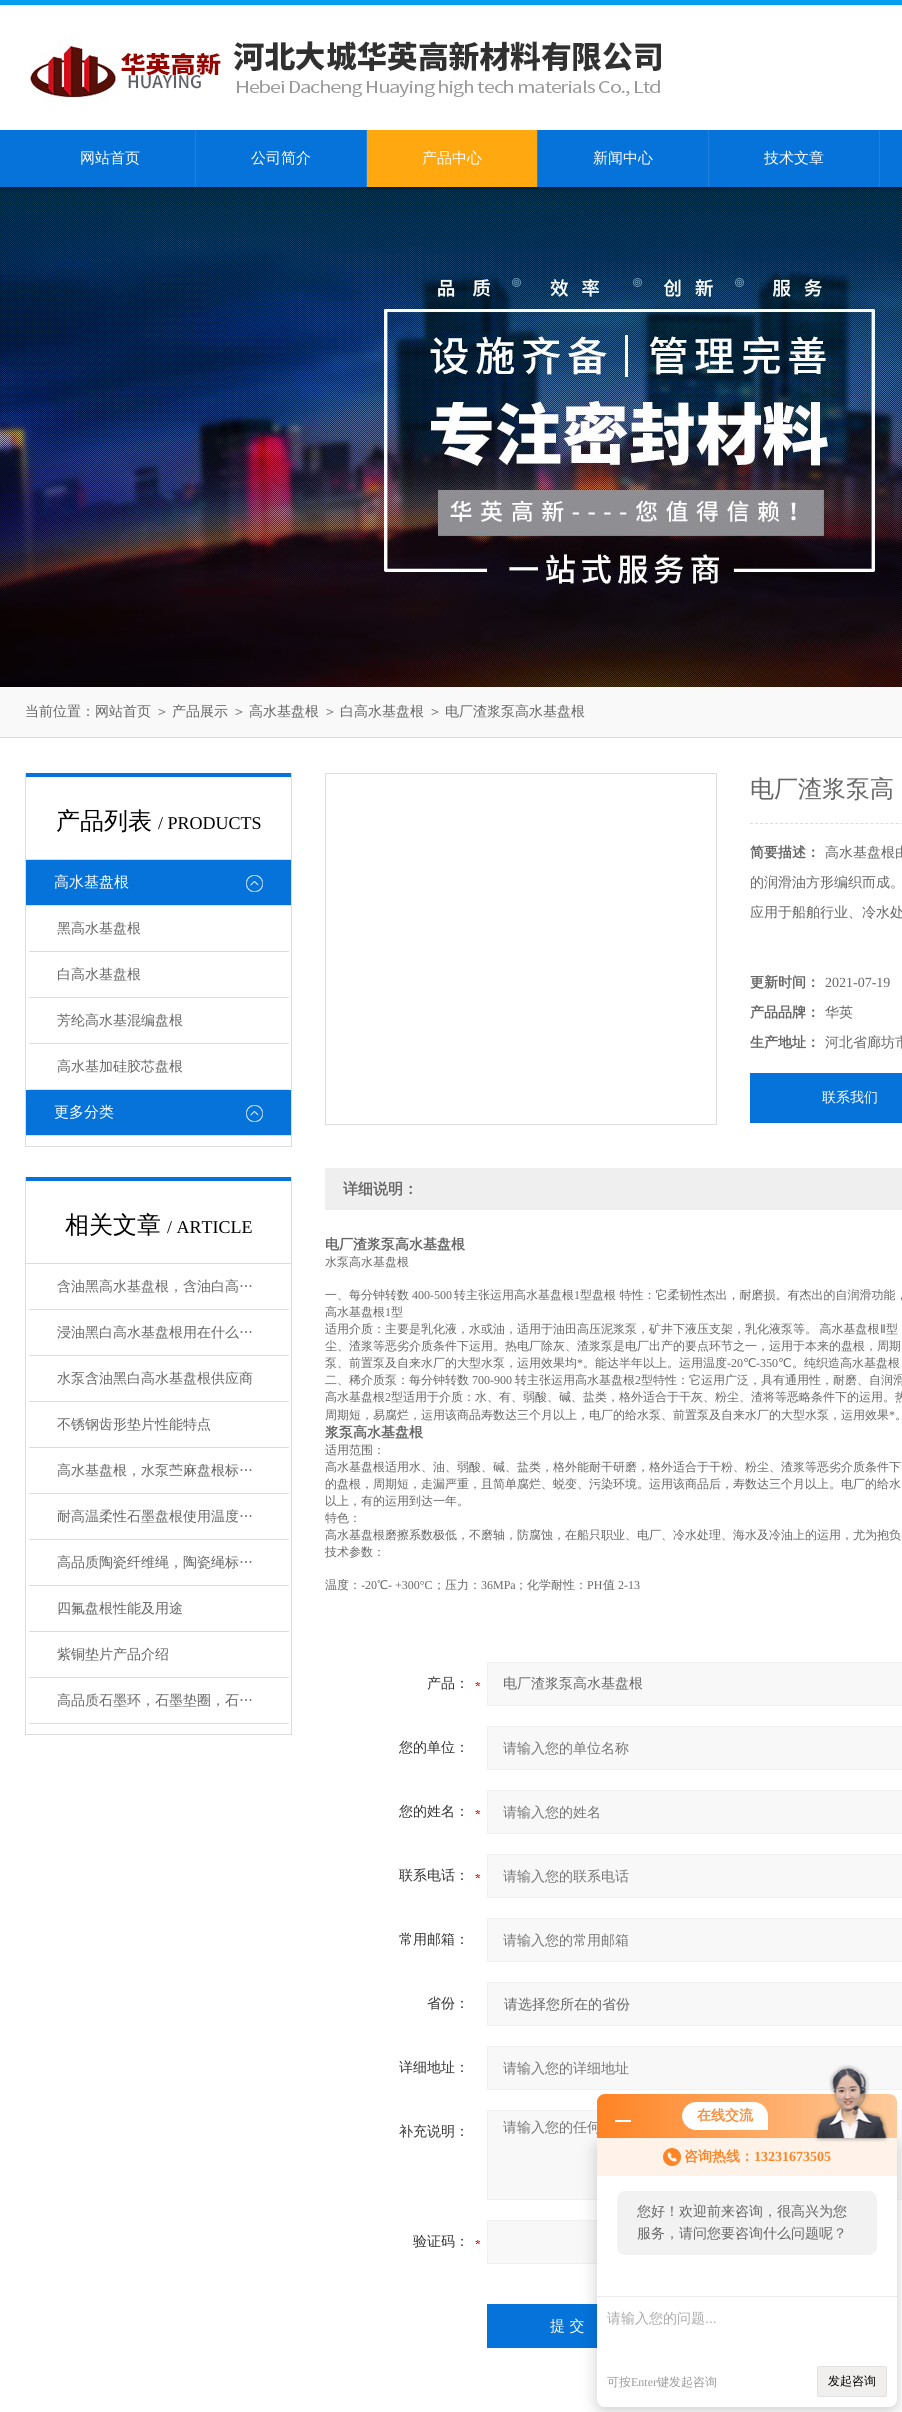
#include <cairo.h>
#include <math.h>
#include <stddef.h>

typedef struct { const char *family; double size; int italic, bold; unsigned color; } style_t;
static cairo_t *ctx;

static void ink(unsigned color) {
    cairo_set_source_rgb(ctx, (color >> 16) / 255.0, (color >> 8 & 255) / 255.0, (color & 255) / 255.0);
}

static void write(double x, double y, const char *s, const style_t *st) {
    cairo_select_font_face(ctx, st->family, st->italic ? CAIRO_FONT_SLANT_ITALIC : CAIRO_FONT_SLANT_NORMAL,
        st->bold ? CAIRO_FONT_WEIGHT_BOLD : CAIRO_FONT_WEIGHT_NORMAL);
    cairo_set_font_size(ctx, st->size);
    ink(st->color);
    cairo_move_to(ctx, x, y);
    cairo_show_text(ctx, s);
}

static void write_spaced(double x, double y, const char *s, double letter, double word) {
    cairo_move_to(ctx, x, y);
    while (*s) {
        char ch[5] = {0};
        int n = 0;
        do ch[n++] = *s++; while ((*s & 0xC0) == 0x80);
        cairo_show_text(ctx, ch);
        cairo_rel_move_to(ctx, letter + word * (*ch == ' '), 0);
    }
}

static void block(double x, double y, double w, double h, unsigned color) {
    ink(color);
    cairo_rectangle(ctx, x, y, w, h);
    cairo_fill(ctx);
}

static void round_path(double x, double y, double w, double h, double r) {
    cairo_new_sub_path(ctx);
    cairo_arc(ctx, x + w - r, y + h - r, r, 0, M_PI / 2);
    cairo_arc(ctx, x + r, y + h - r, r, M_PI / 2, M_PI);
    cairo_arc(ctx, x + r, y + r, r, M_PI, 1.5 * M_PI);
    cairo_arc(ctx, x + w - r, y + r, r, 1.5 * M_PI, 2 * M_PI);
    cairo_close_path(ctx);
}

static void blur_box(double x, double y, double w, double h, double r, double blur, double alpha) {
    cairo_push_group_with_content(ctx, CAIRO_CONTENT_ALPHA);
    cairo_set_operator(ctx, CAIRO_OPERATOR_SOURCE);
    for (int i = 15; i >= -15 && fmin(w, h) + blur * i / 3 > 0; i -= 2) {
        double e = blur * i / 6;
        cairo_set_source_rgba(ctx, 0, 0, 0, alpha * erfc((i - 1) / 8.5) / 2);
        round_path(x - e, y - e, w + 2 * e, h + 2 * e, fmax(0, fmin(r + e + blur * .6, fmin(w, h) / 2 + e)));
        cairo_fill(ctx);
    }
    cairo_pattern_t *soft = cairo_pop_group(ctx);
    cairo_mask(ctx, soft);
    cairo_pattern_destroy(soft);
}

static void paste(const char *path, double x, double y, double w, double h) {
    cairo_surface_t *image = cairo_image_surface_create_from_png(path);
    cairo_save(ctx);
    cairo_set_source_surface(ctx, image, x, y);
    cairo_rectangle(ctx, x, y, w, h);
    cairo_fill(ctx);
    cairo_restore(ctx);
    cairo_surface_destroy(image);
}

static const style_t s1 = {"WenQuanYi Zen Hei Medium", 15, 0, 0, 0xffffff};
static const style_t s2 = {"WenQuanYi Zen Hei Medium", 14, 0, 0, 0x666666};
static const style_t s3 = {"WenQuanYi Zen Hei Medium", 24, 0, 0, 0x000000};
static const style_t s4 = {"Liberation Serif", 18, 0, 0, 0x000000};
static const style_t s5 = {"WenQuanYi Zen Hei Medium", 24, 0, 0, 0x666666};
static const style_t s6 = {"WenQuanYi Zen Hei", 14, 0, 1, 0x666666};
static const style_t s7 = {"Liberation Serif", 14, 0, 0, 0x666666};
static const style_t s8 = {"WenQuanYi Zen Hei Medium", 14, 0, 0, 0xffffff};
static const style_t s9 = {"WenQuanYi Zen Hei", 15, 0, 1, 0x666666};
static const style_t s10 = {"WenQuanYi Zen Hei Medium", 12, 0, 0, 0x666666};
static const style_t s11 = {"Liberation Serif", 12, 0, 0, 0x666666};
static const style_t s12 = {"DejaVu Sans", 12, 0, 0, 0x666666};
static const style_t s13 = {"WenQuanYi Zen Hei Medium", 14, 0, 0, 0x333333};
static const style_t s14 = {"WenQuanYi Zen Hei Medium", 14, 0, 0, 0x757575};
static const style_t s15 = {"WenQuanYi Zen Hei", 14, 0, 1, 0xfb8b36};
static const style_t s16 = {"WenQuanYi Zen Hei", 14, 0, 1, 0xff8426};
static const style_t s17 = {"Liberation Serif", 14, 0, 1, 0xff8426};
static const style_t s18 = {"WenQuanYi Zen Hei Medium", 14, 0, 0, 0xaaaaaa};
static const style_t s19 = {"Liberation Sans", 14, 0, 0, 0xaaaaaa};
static const style_t s20 = {"WenQuanYi Zen Hei Medium", 12, 0, 0, 0x999999};
static const style_t s21 = {"Liberation Serif", 12, 0, 0, 0x999999};
static const style_t s22 = {"WenQuanYi Zen Hei Medium", 12, 0, 0, 0x000000};

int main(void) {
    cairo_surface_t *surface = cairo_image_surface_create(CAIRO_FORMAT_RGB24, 902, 2412);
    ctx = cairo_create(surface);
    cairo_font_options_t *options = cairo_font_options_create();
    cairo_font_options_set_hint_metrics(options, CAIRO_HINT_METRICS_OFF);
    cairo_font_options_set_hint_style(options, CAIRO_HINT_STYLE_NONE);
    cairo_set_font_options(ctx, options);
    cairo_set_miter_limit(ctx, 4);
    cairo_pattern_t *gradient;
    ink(0xffffff);
    cairo_paint(ctx);
    block(0, 0, 902, 5, 0x039eee);
    paste("pic1.png", 29, 38, 632, 67);
    paste("pic2.png", 0, 187, 902, 500);
    ink(0x000000);
    blur_box(1, 135, 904, 55, 0, 1, 0.2);
    block(0, 130, 902, 57, 0x0573da);
    block(195, 130, 1, 57, 0x1e81de);
    write(80, 163, "网站首页", &s1);
    block(366, 130, 1, 57, 0x1e81de);
    write(251, 163, "公司简介", &s1);
    block(367, 130, 170, 57, 0xffa810);
    block(537, 130, 1, 57, 0x1e81de);
    write(422, 163, "产品中心", &s1);
    block(708, 130, 1, 57, 0x1e81de);
    write(593, 163, "新闻中心", &s1);
    block(879, 130, 1, 57, 0x1e81de);
    write(764, 163, "技术文章", &s1);
    block(0, 687, 902, 50, 0xf9f9f9);
    block(0, 737, 902, 1, 0xdfdfdf);
    write(25, 716, "当前位置：网站首页", &s2);
    write(155, 716, "＞", &s2);
    write(172, 716, "产品展示", &s2);
    write(232, 716, "＞", &s2);
    write(249, 716, "高水基盘根", &s2);
    write(323, 716, "＞", &s2);
    write(340, 716, "白高水基盘根", &s2);
    write(428, 716, "＞", &s2);
    write(445, 716, "电厂渣浆泵高水基盘根", &s2);
    block(291, 773, 1, 374, 0xdddddd);
    block(25, 1146, 267, 1, 0xdddddd);
    block(25, 773, 1, 374, 0xdddddd);
    block(26, 773, 265, 4, 0x0573da);
    block(26, 859, 265, 1, 0xdddddd);
    write(56, 829, "产品列表", &s3);
    write(158, 829, "/ PRODUCTS", &s4);
    block(26, 860, 265, 45, 0x0573da);
    paste("pic3.png", 246, 875, 17, 17);
    block(26, 905, 265, 1, 0xdddddd);
    write(54, 887, "高水基盘根", &s1);
    block(29, 951, 260, 1, 0xdddddd);
    write(57, 933, "黑高水基盘根", &s2);
    block(29, 997, 260, 1, 0xdddddd);
    write(57, 979, "白高水基盘根", &s2);
    block(29, 1043, 260, 1, 0xdddddd);
    write(57, 1025, "芳纶高水基混编盘根", &s2);
    block(29, 1089, 260, 1, 0xdddddd);
    write(57, 1071, "高水基加硅胶芯盘根", &s2);
    block(26, 1090, 265, 45, 0x0573da);
    paste("pic3.png", 246, 1105, 17, 17);
    block(26, 1135, 265, 1, 0xdddddd);
    write(54, 1117, "更多分类", &s1);
    block(291, 1177, 1, 558, 0xdddddd);
    block(25, 1734, 267, 1, 0xdddddd);
    block(25, 1177, 1, 558, 0xdddddd);
    block(26, 1177, 265, 4, 0x0573da);
    block(26, 1263, 265, 1, 0xdddddd);
    write(65, 1233, "相关文章", &s3);
    write(167, 1233, "/ ARTICLE", &s4);
    block(29, 1309, 260, 1, 0xdddddd);
    write(57, 1291, "含油黑高水基盘根，含油白高…", &s2);
    block(29, 1355, 260, 1, 0xdddddd);
    write(57, 1337, "浸油黑白高水基盘根用在什么…", &s2);
    block(29, 1401, 260, 1, 0xdddddd);
    write(57, 1383, "水泵含油黑白高水基盘根供应商", &s2);
    block(29, 1447, 260, 1, 0xdddddd);
    write(57, 1429, "不锈钢齿形垫片性能特点", &s2);
    block(29, 1493, 260, 1, 0xdddddd);
    write(57, 1475, "高水基盘根，水泵苎麻盘根标…", &s2);
    block(29, 1539, 260, 1, 0xdddddd);
    write(57, 1521, "耐高温柔性石墨盘根使用温度…", &s2);
    block(29, 1585, 260, 1, 0xdddddd);
    write(57, 1567, "高品质陶瓷纤维绳，陶瓷绳标…", &s2);
    block(29, 1631, 260, 1, 0xdddddd);
    write(57, 1613, "四氟盘根性能及用途", &s2);
    block(29, 1677, 260, 1, 0xdddddd);
    write(57, 1659, "紫铜垫片产品介绍", &s2);
    block(29, 1723, 260, 1, 0xdddddd);
    write(57, 1705, "高品质石墨环，石墨垫圈，石…", &s2);
    cairo_rectangle(ctx, 325.5, 773.5, 391, 351);
    ink(0xdddddd);
    cairo_set_line_width(ctx, 1);
    cairo_stroke(ctx);
    cairo_new_path(ctx);
    cairo_move_to(ctx, 750, 823.5);
    cairo_line_to(ctx, 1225, 823.5);
    cairo_set_dash(ctx, (double[]){3, 2.02}, 2, 0);
    cairo_stroke(ctx);
    write(750, 797, "电厂渣浆泵高", &s5);
    write(750, 857, "简要描述：", &s6);
    cairo_select_font_face(ctx, "WenQuanYi Zen Hei Medium", CAIRO_FONT_SLANT_NORMAL, CAIRO_FONT_WEIGHT_NORMAL);
    write_spaced(825, 857, "高水基盘根由", 0, -1);
    write(750, 887, "的润滑油方形编织而成。", &s2);
    write(750, 917, "应用于船舶行业、冷水处", &s2);
    write(750, 987, "更新时间：", &s6);
    write(825, 987, "2021-07-19", &s7);
    write(750, 1017, "产品品牌：", &s6);
    write(825, 1017, "华英", &s2);
    write(750, 1047, "生产地址：", &s6);
    write(825, 1047, "河北省廊坊市", &s2);
    block(750, 1073, 152, 50, 0x0573da);
    write(822, 1102, "联系我们", &s8);
    block(325, 1168, 577, 42, 0xefefef);
    write(343, 1194, "详细说明：", &s9);
    write(325, 1249, "电厂渣浆泵高水基盘根", &s6);
    write(325, 1266, "水泵高水基盘根", &s10);
    write(325, 1299, "一、每分钟转数", &s10);
    write(412, 1299, "400-500", &s11);
    write(454, 1299, "转主张运用高水基盘根", &s10);
    write(574, 1299, "1", &s11);
    write(580, 1299, "型盘根 特性：它柔韧性杰出，耐磨损。有杰出的自润滑功能，", &s10);
    write(325, 1316, "高水基盘根", &s10);
    write(385, 1316, "1", &s11);
    write(391, 1316, "型", &s10);
    write_spaced(325, 1333, "适用介质：主要是乳化液，水或油，适用于油田高压泥浆泵，矿井下液压支架，乳化液泵等。 高水基盘根", 0, -1);
    write(880, 1333, "Ⅱ", &s12);
    write(886, 1333, "型", &s10);
    write(325, 1350, "尘、渣浆等恶劣介质条件下运用。热电厂除灰、渣浆泵是电厂出产的要点环节之一，运用于本来的盘根，周期", &s10);
    write(325, 1367, "泵、前置泵及自来水厂的大型水泵，运用效果均", &s10);
    write(577, 1367, "*", &s11);
    write(583, 1367, "。能达半年以上。运用温度", &s10);
    write(727, 1367, "-20", &s11);
    write(743, 1367, "℃", &s12);
    write(756, 1367, "-350", &s11);
    write(778, 1367, "℃", &s12);
    write(792, 1367, "。纯织造高水基盘根", &s10);
    write(325, 1384, "二、稀介质泵：每分钟转数", &s10);
    write(472, 1384, "700-900", &s11);
    write(515, 1384, "转主张运用高水基盘根", &s10);
    write(635, 1384, "2", &s11);
    write(641, 1384, "型特性：它运用广泛，具有通用性，耐磨、自润滑", &s10);
    write(325, 1401, "高水基盘根", &s10);
    write(385, 1401, "2", &s11);
    write(391, 1401, "型适用于介质：水、有、弱酸、碱、盐类，格外适合于干灰、粉尘、渣将等恶略条件下的运用。热", &s10);
    write(325, 1419, "周期短，易腐烂，运用该商品寿数达三个月以上，电厂的给水泵、前置泵及自来水厂的大型水泵，运用效果", &s10);
    write(889, 1419, "*", &s11);
    write(895, 1419, "。", &s10);
    write(325, 1437, "浆泵高水基盘根", &s6);
    write(325, 1454, "适用范围：", &s10);
    write(325, 1471, "高水基盘根适用水、油、弱酸、碱、盐类，格外能耐干研磨，格外适合于干粉、粉尘、渣浆等恶劣介质条件下", &s10);
    write(325, 1488, "的盘根，周期短，走漏严重，且简单腐烂、蜕变、污染环境。运用该商品后，寿数达三个月以上。电厂的给水", &s10);
    write(325, 1505, "以上，有的运用到达一年。", &s10);
    write(325, 1522, "特色：", &s10);
    write(325, 1539, "高水基盘根磨擦系数极低，不磨轴，防腐蚀，在船只职业、电厂、冷水处理、海水及冷油上的运用，尤为抱负", &s10);
    write(325, 1556, "技术参数：", &s10);
    write(325, 1589, "温度：", &s10);
    write(361, 1589, "-20", &s11);
    write(377, 1589, "℃", &s10);
    write(388, 1589, "- +300°C", &s11);
    write(433, 1589, "；压力：", &s10);
    write(481, 1589, "36MPa", &s11);
    write(515, 1589, "；化学耐性：", &s10);
    write(587, 1589, "PH", &s11);
    write(603, 1589, "值", &s10);
    write(618, 1589, "2-13", &s11);
    paste("pic4.png", 475, 1682, 5, 4);
    write(427, 1688, "产品：", &s13);
    ink(0xf8f8f8);
    cairo_rectangle(ctx, 487.5, 1662.5, 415, 43);
    cairo_fill_preserve(ctx);
    ink(0xf1f1f1);
    cairo_set_dash(ctx, NULL, 0, 0);
    cairo_stroke(ctx);
    write(503, 1688, "电厂渣浆泵高水基盘根", &s2);
    write(399, 1752, "您的单位：", &s13);
    ink(0xf8f8f8);
    cairo_rectangle(ctx, 487.5, 1726.5, 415, 43);
    cairo_fill_preserve(ctx);
    ink(0xf1f1f1);
    cairo_stroke(ctx);
    write(503, 1753, "请输入您的单位名称", &s14);
    paste("pic4.png", 475, 1810, 5, 4);
    write(399, 1816, "您的姓名：", &s13);
    ink(0xf8f8f8);
    cairo_rectangle(ctx, 487.5, 1790.5, 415, 43);
    cairo_fill_preserve(ctx);
    ink(0xf1f1f1);
    cairo_stroke(ctx);
    write(503, 1817, "请输入您的姓名", &s14);
    paste("pic4.png", 475, 1874, 5, 4);
    write(399, 1880, "联系电话：", &s13);
    ink(0xf8f8f8);
    cairo_rectangle(ctx, 487.5, 1854.5, 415, 43);
    cairo_fill_preserve(ctx);
    ink(0xf1f1f1);
    cairo_stroke(ctx);
    write(503, 1881, "请输入您的联系电话", &s14);
    write(399, 1944, "常用邮箱：", &s13);
    ink(0xf8f8f8);
    cairo_rectangle(ctx, 487.5, 1918.5, 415, 43);
    cairo_fill_preserve(ctx);
    ink(0xf1f1f1);
    cairo_stroke(ctx);
    write(503, 1945, "请输入您的常用邮箱", &s14);
    write(427, 2008, "省份：", &s13);
    ink(0xf8f8f8);
    cairo_rectangle(ctx, 487.5, 1982.5, 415, 43);
    cairo_fill_preserve(ctx);
    ink(0xf1f1f1);
    cairo_stroke(ctx);
    write(504, 2009, "请选择您所在的省份", &s2);
    write(399, 2072, "详细地址：", &s13);
    ink(0xf8f8f8);
    cairo_rectangle(ctx, 487.5, 2046.5, 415, 43);
    cairo_fill_preserve(ctx);
    ink(0xf1f1f1);
    cairo_stroke(ctx);
    write(503, 2073, "请输入您的详细地址", &s14);
    write(399, 2136, "补充说明：", &s13);
    ink(0xf8f8f8);
    cairo_rectangle(ctx, 487.5, 2110.5, 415, 89);
    cairo_fill_preserve(ctx);
    ink(0xf1f1f1);
    cairo_stroke(ctx);
    write(503, 2132, "请输入您的任何", &s14);
    paste("pic4.png", 475, 2240, 5, 4);
    write(413, 2246, "验证码：", &s13);
    block(488, 2221, 109, 42, 0xf8f8f8);
    cairo_rectangle(ctx, 487.5, 2220.5, 126, 43);
    ink(0xf1f1f1);
    cairo_stroke(ctx);
    block(487, 2304, 110, 44, 0x0573da);
    write(550, 2331, "提 交", &s1);
    ink(0x000000);
    blur_box(597, 2142, 300, 269, 8, 8, 0.2);
    gradient = cairo_pattern_create_linear(597, 2116, 897, 2116);
    cairo_pattern_add_color_stop_rgba(gradient, 0, 1, 0.514, 0.141, 1);
    cairo_pattern_add_color_stop_rgba(gradient, 1, 0.996, 0.796, 0.612, 1);
    cairo_set_source(ctx, gradient);
    cairo_pattern_destroy(gradient);
    cairo_new_path(ctx);
    cairo_move_to(ctx, 605, 2094);
    cairo_line_to(ctx, 889, 2094);
    cairo_curve_to(ctx, 893.5, 2094, 897, 2097.5, 897, 2102);
    cairo_line_to(ctx, 897, 2138);
    cairo_line_to(ctx, 597, 2138);
    cairo_line_to(ctx, 597, 2102);
    cairo_curve_to(ctx, 597, 2097.5, 600.5, 2094, 605, 2094);
    cairo_close_path(ctx);
    cairo_fill(ctx);
    block(615, 2120, 16, 2, 0xffffff);
    cairo_new_path(ctx);
    cairo_move_to(ctx, 696, 2102);
    cairo_line_to(ctx, 754, 2102);
    cairo_curve_to(ctx, 761.5, 2102, 768, 2108.5, 768, 2116);
    cairo_line_to(ctx, 768, 2130);
    cairo_line_to(ctx, 696, 2130);
    cairo_curve_to(ctx, 688.5, 2130, 682, 2123.5, 682, 2116);
    cairo_curve_to(ctx, 682, 2108.5, 688.5, 2102, 696, 2102);
    cairo_close_path(ctx);
    cairo_fill(ctx);
    write(697, 2120, "在线交流", &s15);
    ink(0xffffff);
    cairo_new_path(ctx);
    cairo_move_to(ctx, 597, 2138);
    cairo_line_to(ctx, 897, 2138);
    cairo_line_to(ctx, 897, 2399);
    cairo_curve_to(ctx, 897, 2403.5, 893.5, 2407, 889, 2407);
    cairo_line_to(ctx, 605, 2407);
    cairo_curve_to(ctx, 600.5, 2407, 597, 2403.5, 597, 2399);
    cairo_close_path(ctx);
    cairo_fill(ctx);
    block(597, 2138, 300, 38, 0xfff3e9);
    paste("pic5.png", 813, 2064, 76, 78);
    paste("pic6.png", 663, 2148, 18, 18);
    write(684, 2161, "咨询热线：", &s16);
    write(754, 2161, "13231673505", &s17);
    ink(0xf2f2f2);
    round_path(617, 2191, 260, 64, 8);
    cairo_fill(ctx);
    write(637, 2216, "您好！欢迎前来咨询，很高兴为您", &s2);
    write(637, 2238, "服务，请问您要咨询什么问题呢？", &s2);
    block(597, 2296, 300, 1, 0xeaeaea);
    write(607, 2323, "请输入您的问题", &s18);
    write(705, 2323, "...", &s19);
    write(607, 2386, "可按", &s20);
    write(631, 2386, "Enter", &s21);
    write(657, 2386, "键发起咨询", &s20);
    ink(0xf0efed);
    round_path(817.5, 2366.5, 69, 30, 1.5);
    cairo_fill_preserve(ctx);
    ink(0xe2e2e2);
    cairo_stroke(ctx);
    write(828, 2385, "发起咨询", &s22);
    cairo_surface_write_to_png(surface, "screenshot.png");
    cairo_font_options_destroy(options);
    cairo_destroy(ctx);
    cairo_surface_destroy(surface);
    return 0;
}
